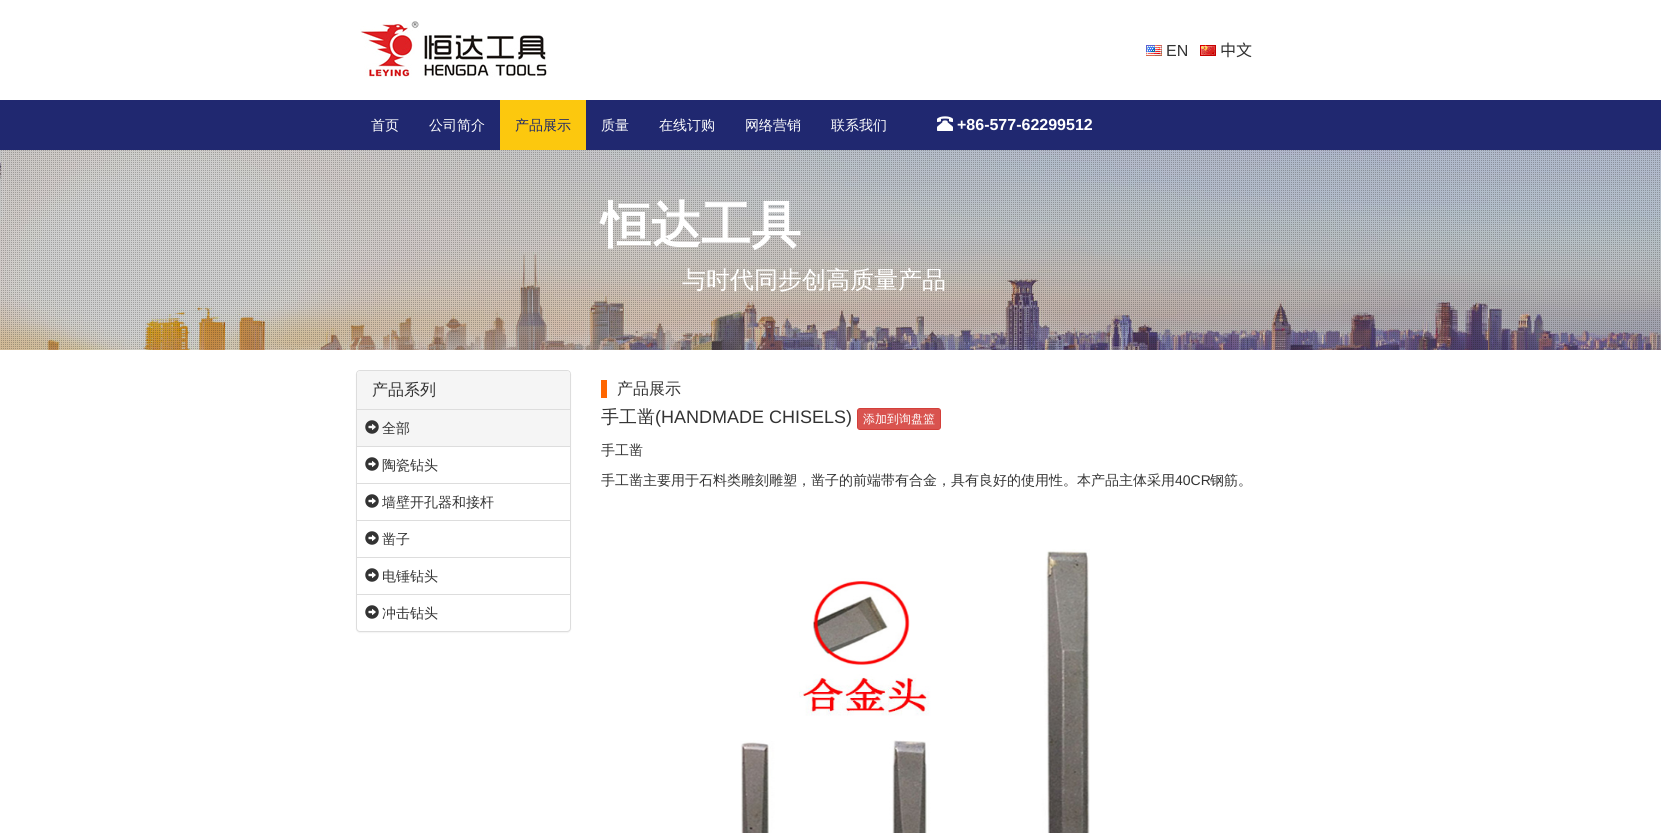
#include <cairo.h>
#include <math.h>
#include <stddef.h>

typedef struct { const char *family; double size; int italic, bold; unsigned color; } style_t;
static cairo_t *ctx;

static void ink(unsigned color) {
    cairo_set_source_rgb(ctx, (color >> 16) / 255.0, (color >> 8 & 255) / 255.0, (color & 255) / 255.0);
}

static void write(double x, double y, const char *s, const style_t *st) {
    cairo_select_font_face(ctx, st->family, st->italic ? CAIRO_FONT_SLANT_ITALIC : CAIRO_FONT_SLANT_NORMAL,
        st->bold ? CAIRO_FONT_WEIGHT_BOLD : CAIRO_FONT_WEIGHT_NORMAL);
    cairo_set_font_size(ctx, st->size);
    ink(st->color);
    cairo_move_to(ctx, x, y);
    cairo_show_text(ctx, s);
}

static void block(double x, double y, double w, double h, unsigned color) {
    ink(color);
    cairo_rectangle(ctx, x, y, w, h);
    cairo_fill(ctx);
}

static void round_path(double x, double y, double w, double h, double r) {
    cairo_new_sub_path(ctx);
    cairo_arc(ctx, x + w - r, y + h - r, r, 0, M_PI / 2);
    cairo_arc(ctx, x + r, y + h - r, r, M_PI / 2, M_PI);
    cairo_arc(ctx, x + r, y + r, r, M_PI, 1.5 * M_PI);
    cairo_arc(ctx, x + w - r, y + r, r, 1.5 * M_PI, 2 * M_PI);
    cairo_close_path(ctx);
}

static void blur_box(double x, double y, double w, double h, double r, double blur, double alpha) {
    cairo_push_group_with_content(ctx, CAIRO_CONTENT_ALPHA);
    cairo_set_operator(ctx, CAIRO_OPERATOR_SOURCE);
    for (int i = 15; i >= -15 && fmin(w, h) + blur * i / 3 > 0; i -= 2) {
        double e = blur * i / 6;
        cairo_set_source_rgba(ctx, 0, 0, 0, alpha * erfc((i - 1) / 8.5) / 2);
        round_path(x - e, y - e, w + 2 * e, h + 2 * e, fmax(0, fmin(r + e + blur * .6, fmin(w, h) / 2 + e)));
        cairo_fill(ctx);
    }
    cairo_pattern_t *soft = cairo_pop_group(ctx);
    cairo_mask(ctx, soft);
    cairo_pattern_destroy(soft);
}

static void paste(const char *path, double x, double y, double w, double h) {
    cairo_surface_t *image = cairo_image_surface_create_from_png(path);
    cairo_save(ctx);
    cairo_set_source_surface(ctx, image, x, y);
    cairo_rectangle(ctx, x, y, w, h);
    cairo_fill(ctx);
    cairo_restore(ctx);
    cairo_surface_destroy(image);
}

static const style_t s1 = {"Liberation Sans", 16, 0, 0, 0x333333};
static const style_t s2 = {"Noto Sans CJK SC", 16, 0, 0, 0x333333};
static const style_t s3 = {"WenQuanYi Zen Hei Medium", 14, 0, 0, 0xffffff};
static const style_t s4 = {"WenQuanYi Zen Hei Medium", 14, 0, 0, 0x1f296a};
static const style_t s5 = {"Liberation Sans", 16, 0, 1, 0xffffff};
static const style_t s6 = {"WenQuanYi Zen Hei", 50, 0, 1, 0xffffff};
static const style_t s7 = {"WenQuanYi Zen Hei Medium", 24, 0, 0, 0xffffff};
static const style_t s8 = {"WenQuanYi Zen Hei Medium", 16, 0, 0, 0x333333};
static const style_t s9 = {"WenQuanYi Zen Hei Medium", 14, 0, 0, 0x333333};
static const style_t s10 = {"WenQuanYi Zen Hei Medium", 18, 0, 0, 0x333333};
static const style_t s11 = {"Liberation Sans", 18, 0, 0, 0x333333};
static const style_t s12 = {"WenQuanYi Zen Hei Medium", 12, 0, 0, 0xffffff};
static const style_t s13 = {"Liberation Sans", 14, 0, 0, 0x333333};

int main(void) {
    cairo_surface_t *surface = cairo_image_surface_create(CAIRO_FORMAT_RGB24, 1661, 833);
    ctx = cairo_create(surface);
    cairo_font_options_t *options = cairo_font_options_create();
    cairo_font_options_set_hint_metrics(options, CAIRO_HINT_METRICS_OFF);
    cairo_font_options_set_hint_style(options, CAIRO_HINT_STYLE_NONE);
    cairo_set_font_options(ctx, options);
    cairo_set_miter_limit(ctx, 4);
    ink(0xffffff);
    cairo_paint(ctx);
    paste("pic1.png", 360, 21, 187, 57);
    paste("pic2.png", 1146, 45, 16, 11);
    write(1166, 56, "EN", &s1);
    paste("pic3.png", 1200, 45, 16, 11);
    write(1220, 56, "中文", &s2);
    block(0, 100, 1661, 50, 0x202870);
    write(371, 130, "首页", &s3);
    write(429, 130, "公司简介", &s3);
    block(500, 100, 86, 50, 0xfcc80e);
    write(515, 130, "产品展示", &s4);
    write(601, 130, "质量", &s3);
    write(659, 130, "在线订购", &s3);
    write(745, 130, "网络营销", &s3);
    write(831, 130, "联系我们", &s3);
    paste("pic4.png", 937, 116, 16, 15);
    write(957, 130, "+86-577-62299512", &s5);
    paste("pic5.png", 0, 150, 1661, 200);
    paste("pic6.png", 0, 150, 1661, 200);
    write(601, 242, "恒达工具", &s6);
    write(682, 288, "与时代同步创高质量产品", &s7);
    ink(0x000000);
    blur_box(356, 371, 215, 262, 4, 0.5, 0.05);
    ink(0xffffff);
    round_path(356.5, 370.5, 214, 261, 3.5);
    cairo_fill_preserve(ctx);
    ink(0xdddddd);
    cairo_set_line_width(ctx, 1);
    cairo_stroke(ctx);
    ink(0xf5f5f5);
    cairo_new_path(ctx);
    cairo_move_to(ctx, 360, 371);
    cairo_line_to(ctx, 567, 371);
    cairo_curve_to(ctx, 568.5, 371, 570, 372.5, 570, 374);
    cairo_line_to(ctx, 570, 410);
    cairo_line_to(ctx, 357, 410);
    cairo_line_to(ctx, 357, 374);
    cairo_curve_to(ctx, 357, 372.5, 358.5, 371, 360, 371);
    cairo_close_path(ctx);
    cairo_fill(ctx);
    block(357, 409, 213, 1, 0xdddddd);
    write(372, 395, "产品系列", &s8);
    block(357, 410, 213, 36, 0xf5f5f5);
    paste("pic7.png", 365, 420, 14, 14);
    write(382, 433, "全部", &s9);
    block(356, 446, 214, 1, 0xdddddd);
    paste("pic8.png", 365, 457, 14, 14);
    write(382, 470, "陶瓷钻头", &s9);
    block(356, 483, 214, 1, 0xdddddd);
    paste("pic8.png", 365, 494, 14, 14);
    write(382, 507, "墙壁开孔器和接杆", &s9);
    block(356, 520, 214, 1, 0xdddddd);
    paste("pic8.png", 365, 531, 14, 14);
    write(382, 544, "凿子", &s9);
    block(356, 557, 214, 1, 0xdddddd);
    paste("pic8.png", 365, 568, 14, 14);
    write(382, 581, "电锤钻头", &s9);
    block(356, 594, 214, 1, 0xdddddd);
    paste("pic8.png", 365, 605, 14, 14);
    write(382, 618, "冲击钻头", &s9);
    block(601, 380, 6, 18, 0xff6600);
    write(617, 394, "产品展示", &s8);
    write(601, 423, "手工凿", &s10);
    write(655, 423, "(HANDMADE CHISELS)", &s11);
    ink(0xd9534f);
    round_path(857.5, 408.5, 83, 21, 2.5);
    cairo_fill_preserve(ctx);
    ink(0xd43f3a);
    cairo_stroke(ctx);
    write(863, 423, "添加到询盘篮", &s12);
    write(601, 455, "手工凿", &s9);
    write(601, 485, "手工凿主要用于石料类雕刻雕塑，凿子的前端带有合金，具有良好的使用性。本产品主体采用", &s9);
    write(1175, 485, "40CR", &s13);
    write(1210, 485, "钢筋。", &s9);
    paste("pic9.png", 740, 549, 350, 284);
    cairo_surface_write_to_png(surface, "screenshot.png");
    cairo_font_options_destroy(options);
    cairo_destroy(ctx);
    cairo_surface_destroy(surface);
    return 0;
}
